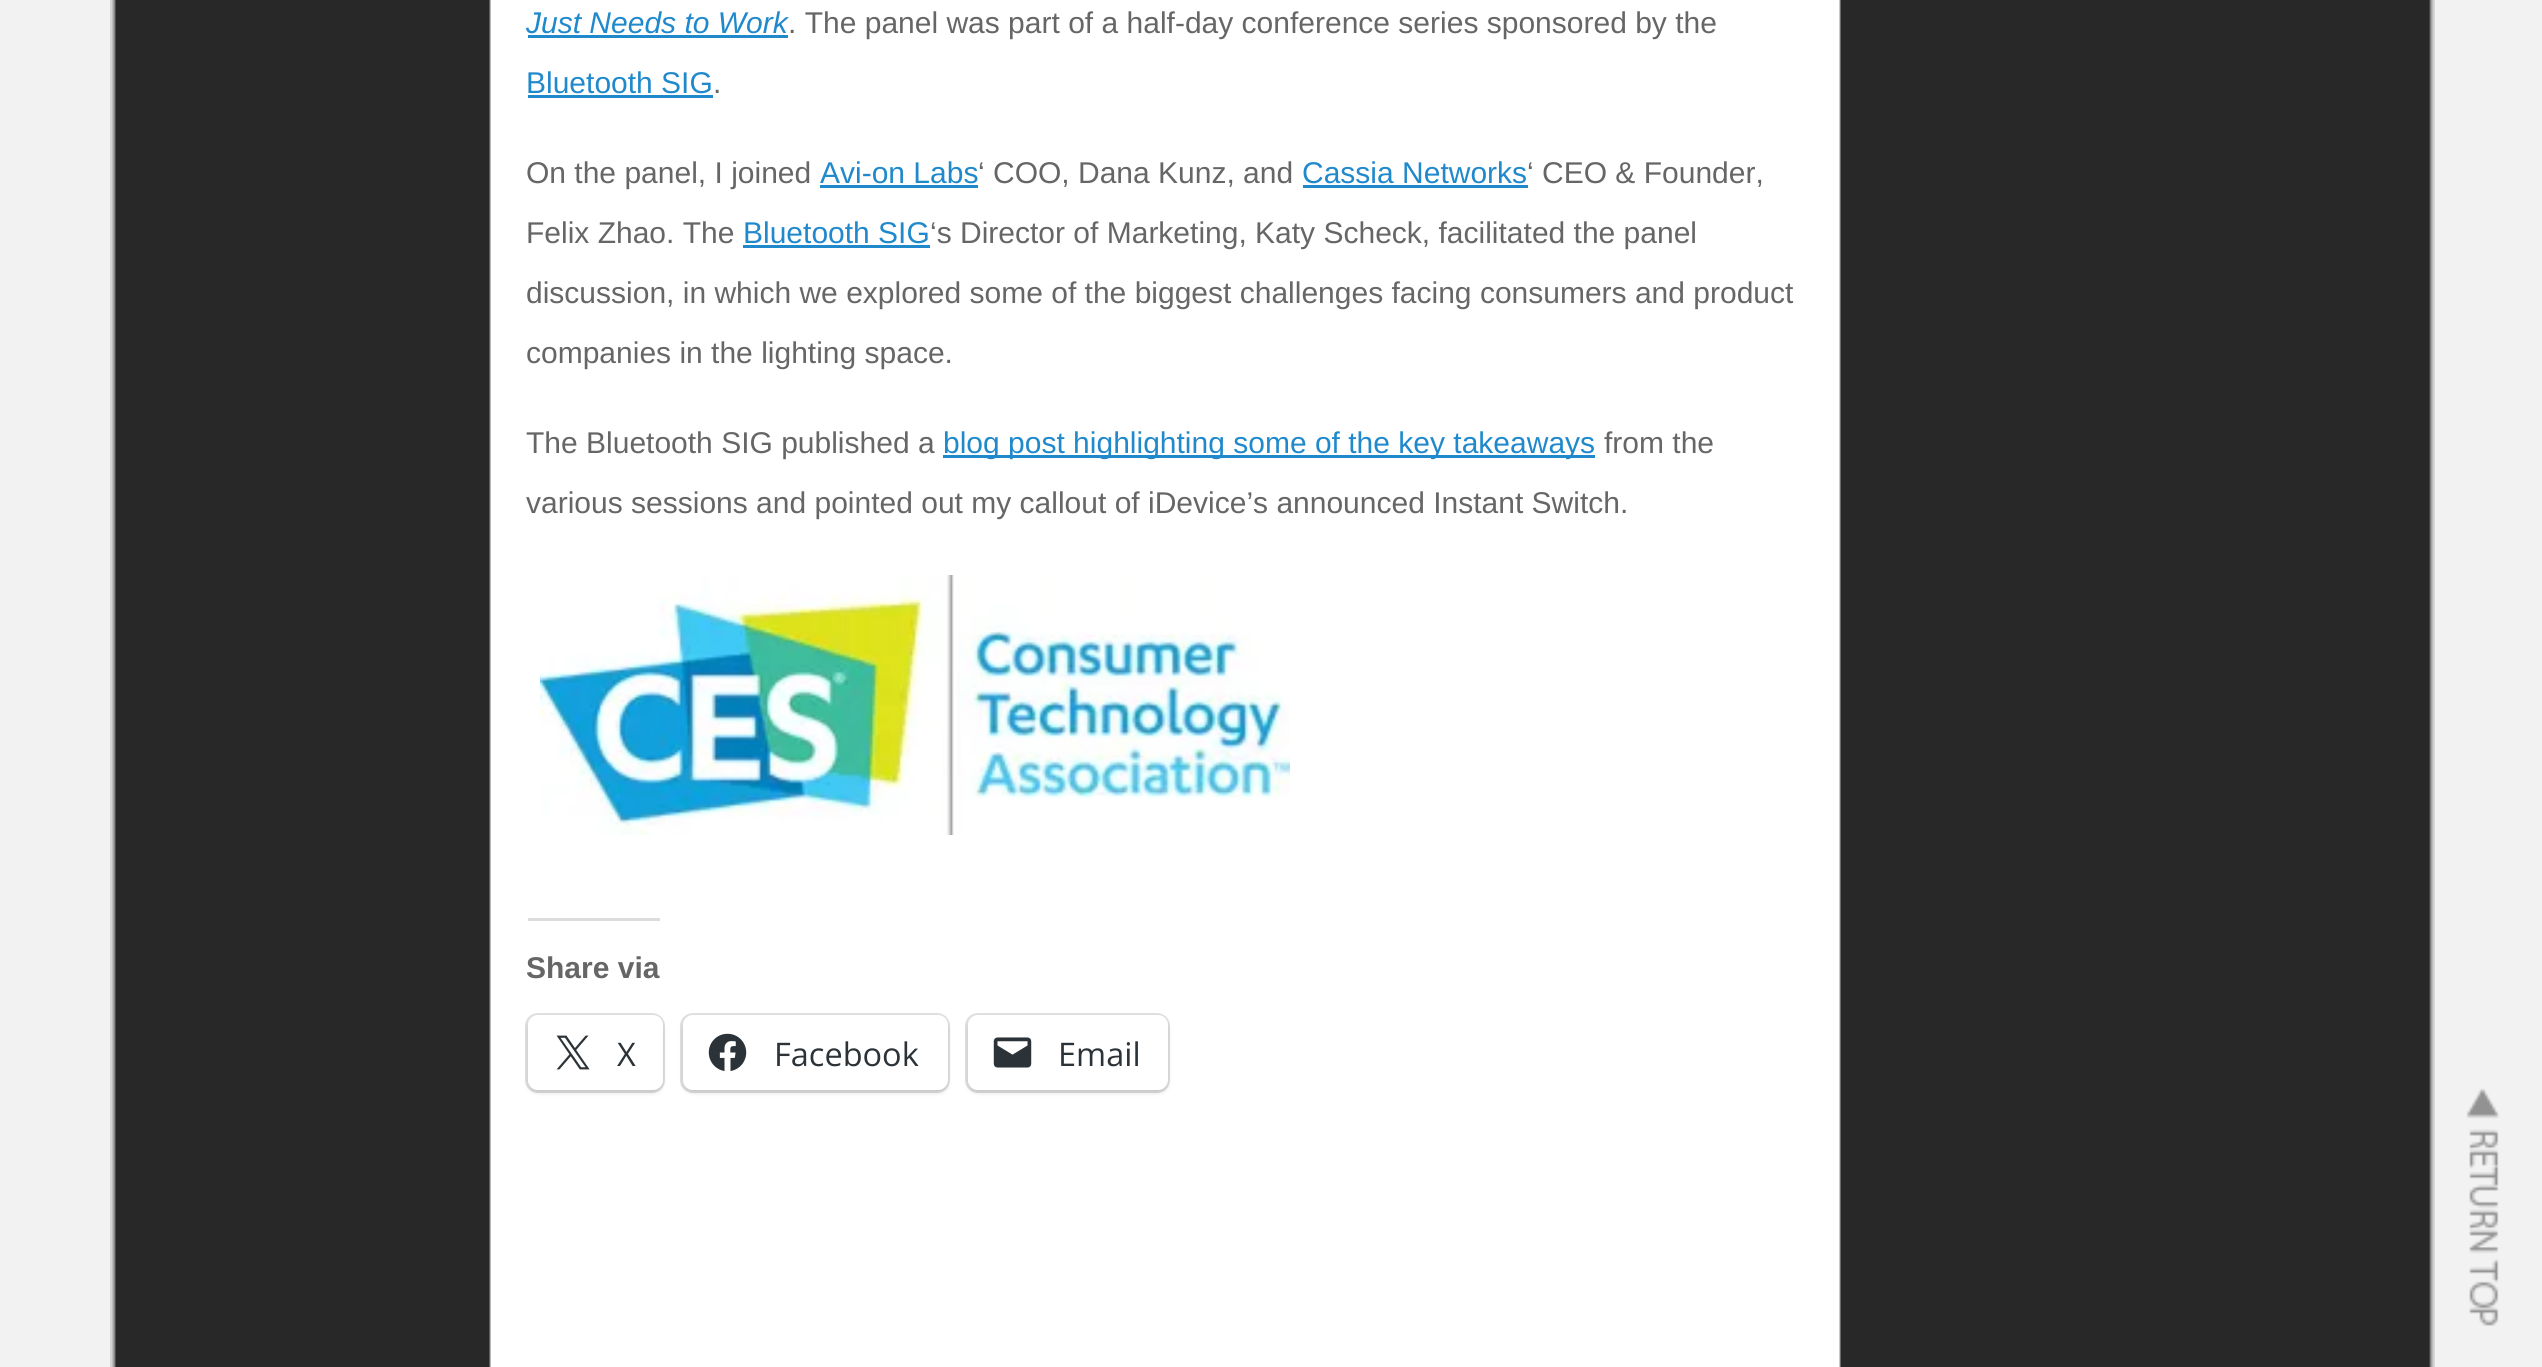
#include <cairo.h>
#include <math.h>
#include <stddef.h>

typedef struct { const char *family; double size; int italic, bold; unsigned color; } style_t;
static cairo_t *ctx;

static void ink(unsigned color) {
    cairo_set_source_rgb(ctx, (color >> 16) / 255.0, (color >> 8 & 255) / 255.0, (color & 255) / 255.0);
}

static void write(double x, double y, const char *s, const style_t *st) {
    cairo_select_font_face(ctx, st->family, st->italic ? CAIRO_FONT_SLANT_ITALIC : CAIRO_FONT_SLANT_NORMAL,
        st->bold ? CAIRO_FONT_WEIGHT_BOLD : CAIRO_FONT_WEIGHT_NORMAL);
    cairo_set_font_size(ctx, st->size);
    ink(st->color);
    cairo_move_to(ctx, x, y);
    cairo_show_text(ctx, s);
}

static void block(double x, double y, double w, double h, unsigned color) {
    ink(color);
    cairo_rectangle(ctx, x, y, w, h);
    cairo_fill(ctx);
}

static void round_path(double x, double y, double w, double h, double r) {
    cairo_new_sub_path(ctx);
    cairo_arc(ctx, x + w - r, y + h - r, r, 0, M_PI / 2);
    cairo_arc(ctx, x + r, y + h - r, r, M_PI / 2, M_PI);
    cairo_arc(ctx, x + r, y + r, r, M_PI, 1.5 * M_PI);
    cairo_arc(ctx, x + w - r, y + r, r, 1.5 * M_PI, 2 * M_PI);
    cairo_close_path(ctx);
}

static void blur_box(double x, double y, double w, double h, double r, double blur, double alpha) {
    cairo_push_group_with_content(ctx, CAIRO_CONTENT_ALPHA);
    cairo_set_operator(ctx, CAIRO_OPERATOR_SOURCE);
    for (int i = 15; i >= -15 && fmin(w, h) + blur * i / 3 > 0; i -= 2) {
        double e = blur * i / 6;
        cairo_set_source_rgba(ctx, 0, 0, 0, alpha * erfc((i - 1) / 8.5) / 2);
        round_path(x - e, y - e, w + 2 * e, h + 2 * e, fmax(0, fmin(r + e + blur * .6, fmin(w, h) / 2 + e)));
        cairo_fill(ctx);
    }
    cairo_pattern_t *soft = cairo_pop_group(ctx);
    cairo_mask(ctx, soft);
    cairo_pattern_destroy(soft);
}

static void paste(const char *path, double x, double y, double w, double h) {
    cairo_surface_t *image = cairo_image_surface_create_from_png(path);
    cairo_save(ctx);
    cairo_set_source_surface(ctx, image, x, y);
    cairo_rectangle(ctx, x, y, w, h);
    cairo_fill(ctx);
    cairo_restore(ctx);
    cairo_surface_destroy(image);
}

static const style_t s1 = {"Liberation Sans", 30, 1, 0, 0x2089cc};
static const style_t s2 = {"Liberation Sans", 30, 0, 0, 0x666666};
static const style_t s3 = {"Liberation Sans", 30, 0, 0, 0x2089cc};
static const style_t s4 = {"Liberation Sans", 30, 0, 1, 0x666666};
static const style_t s5 = {"Open Sans", 32.5, 0, 0, 0x2c3338};

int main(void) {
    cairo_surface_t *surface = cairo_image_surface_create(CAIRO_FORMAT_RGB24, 2542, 1367);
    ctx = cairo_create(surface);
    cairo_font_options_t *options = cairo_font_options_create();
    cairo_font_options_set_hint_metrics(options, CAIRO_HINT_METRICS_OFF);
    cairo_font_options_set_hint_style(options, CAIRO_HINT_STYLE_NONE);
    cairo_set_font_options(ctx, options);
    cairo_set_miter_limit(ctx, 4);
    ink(0xf2f2f2);
    cairo_paint(ctx);
    paste("pic1.png", 110, 0, 2325, 1367);
    write(526, 33, "Just Needs to Work", &s1);
    block(528, 35, 260, 3, 0x2089cc);
    write(788, 33, ". The panel was part of a half-day conference series sponsored by the", &s2);
    write(526, 93, "Bluetooth SIG", &s3);
    block(528, 95, 185, 3, 0x2089cc);
    write(713, 93, ".", &s2);
    write(526, 183, "On the panel, I joined", &s2);
    write(820, 183, "Avi-on Labs", &s3);
    block(820, 185, 158, 3, 0x2089cc);
    write(978, 183, "‘ COO, Dana Kunz, and", &s2);
    write(1302, 183, "Cassia Networks", &s3);
    block(1303, 185, 225, 3, 0x2089cc);
    write(1527, 183, "‘ CEO & Founder,", &s2);
    write(526, 243, "Felix Zhao. The", &s2);
    write(743, 243, "Bluetooth SIG", &s3);
    block(743, 245, 187, 3, 0x2089cc);
    write(930, 243, "‘s Director of Marketing, Katy Scheck, facilitated the panel", &s2);
    write(526, 303, "discussion, in which we explored some of the biggest challenges facing consumers and product", &s2);
    write(526, 363, "companies in the lighting space.", &s2);
    write(526, 453, "The Bluetooth SIG published a", &s2);
    block(943, 455, 652, 3, 0x2089cc);
    write(943, 453, "blog post highlighting some of the key takeaways", &s3);
    write(1604, 453, "from the", &s2);
    write(526, 513, "various sessions and pointed out my callout of iDevice’s announced Instant Switch.", &s2);
    paste("pic2.png", 540, 575, 750, 260);
    block(528, 918, 132, 3, 0xdcdcde);
    write(526, 978, "Share via", &s4);
    round_path(526.5, 1014.5, 137, 77, 11.5);
    ink(0xe0e0e0);
    cairo_set_line_width(ctx, 3);
    cairo_stroke(ctx);
    ink(0x000000);
    blur_box(528, 1018, 135, 75, 10, 2.5, 0.12);
    ink(0xffffff);
    round_path(528, 1015, 135, 75, 10);
    cairo_fill(ctx);
    paste("pic3.png", 556, 1035, 34, 35);
    write(617, 1066, "X", &s5);
    round_path(681.5, 1014.5, 267, 77, 11.5);
    ink(0xe0e0e0);
    cairo_stroke(ctx);
    ink(0x000000);
    blur_box(683, 1018, 265, 75, 10, 2.5, 0.12);
    ink(0xffffff);
    round_path(683, 1015, 265, 75, 10);
    cairo_fill(ctx);
    paste("pic4.png", 708, 1033, 39, 38);
    write(774, 1066, "Facebook", &s5);
    round_path(966.5, 1014.5, 202, 77, 11.5);
    ink(0xe0e0e0);
    cairo_stroke(ctx);
    ink(0x000000);
    blur_box(968, 1018, 200, 75, 10, 2.5, 0.12);
    ink(0xffffff);
    round_path(968, 1015, 200, 75, 10);
    cairo_fill(ctx);
    paste("pic5.png", 993, 1037, 39, 31);
    write(1058, 1066, "Email", &s5);
    paste("pic6.png", 2466, 1088, 34, 238);
    cairo_surface_write_to_png(surface, "screenshot.png");
    cairo_font_options_destroy(options);
    cairo_destroy(ctx);
    cairo_surface_destroy(surface);
    return 0;
}
